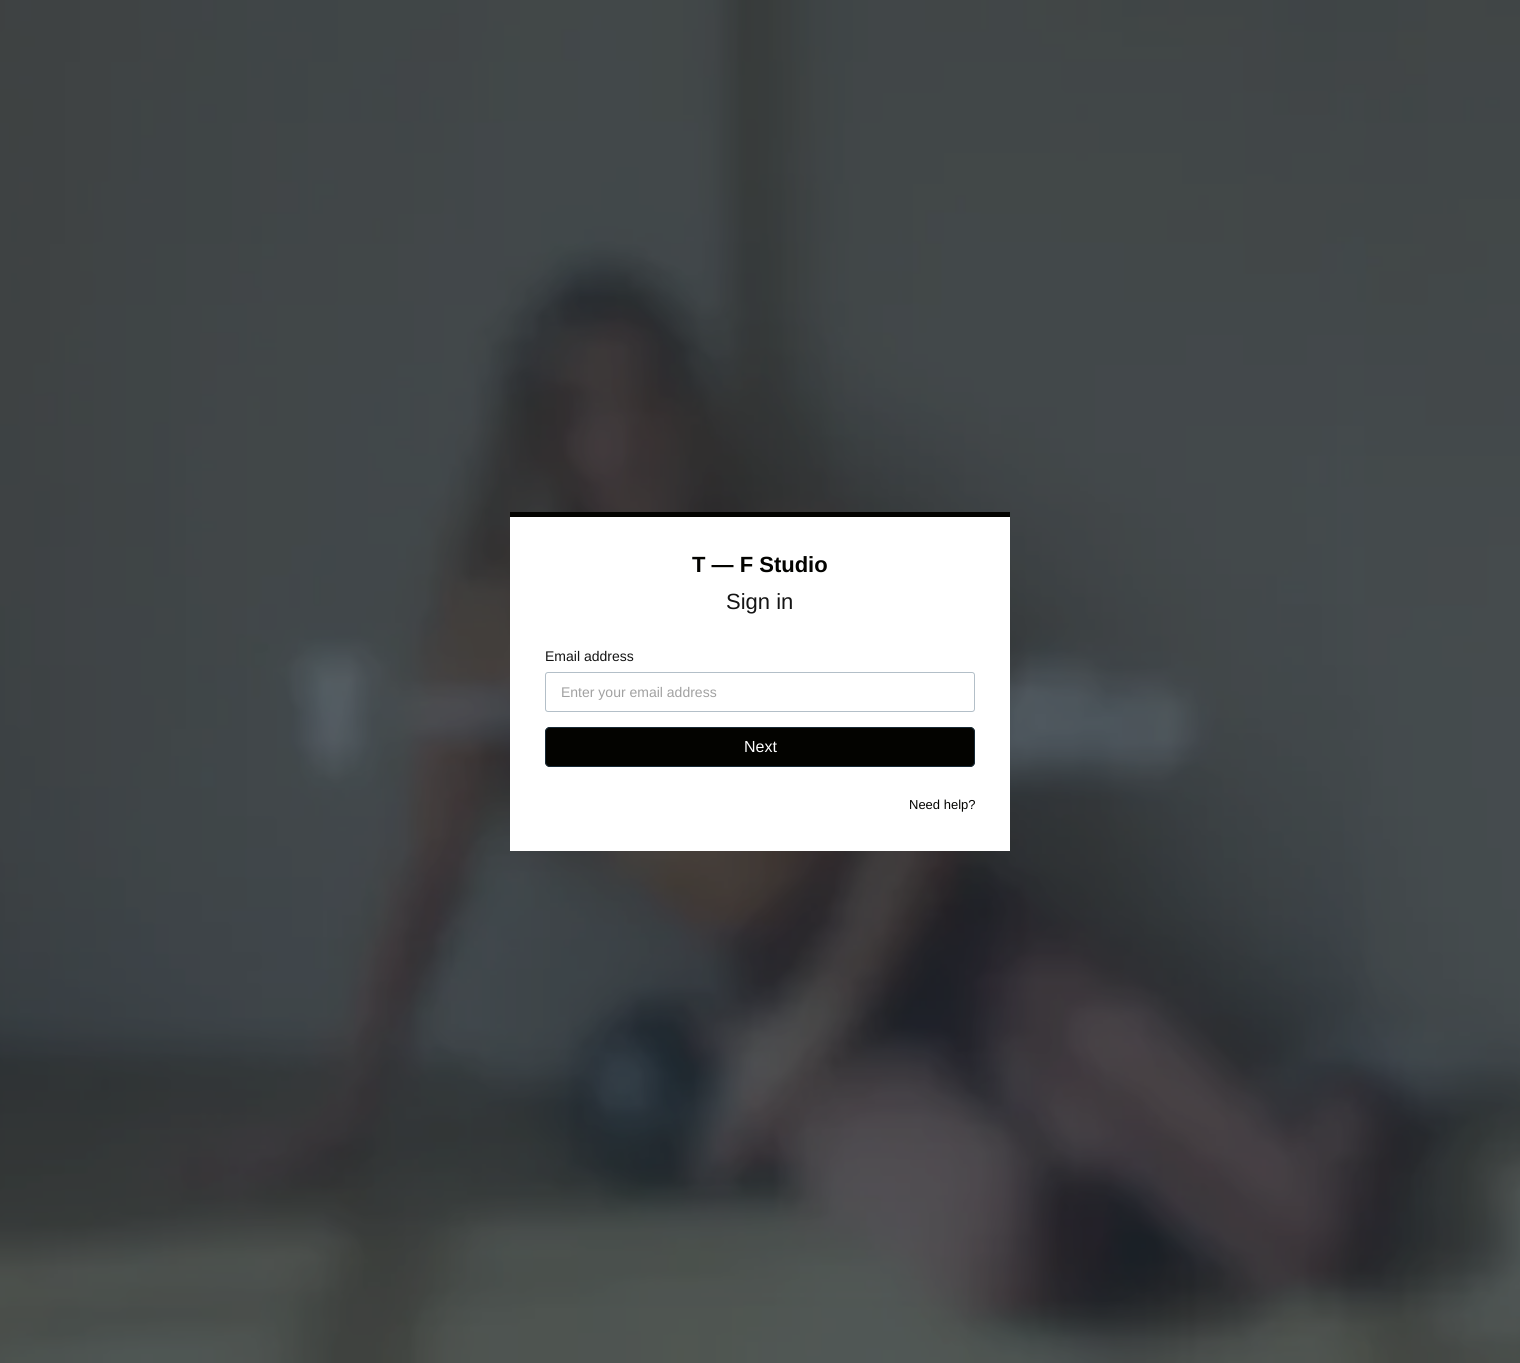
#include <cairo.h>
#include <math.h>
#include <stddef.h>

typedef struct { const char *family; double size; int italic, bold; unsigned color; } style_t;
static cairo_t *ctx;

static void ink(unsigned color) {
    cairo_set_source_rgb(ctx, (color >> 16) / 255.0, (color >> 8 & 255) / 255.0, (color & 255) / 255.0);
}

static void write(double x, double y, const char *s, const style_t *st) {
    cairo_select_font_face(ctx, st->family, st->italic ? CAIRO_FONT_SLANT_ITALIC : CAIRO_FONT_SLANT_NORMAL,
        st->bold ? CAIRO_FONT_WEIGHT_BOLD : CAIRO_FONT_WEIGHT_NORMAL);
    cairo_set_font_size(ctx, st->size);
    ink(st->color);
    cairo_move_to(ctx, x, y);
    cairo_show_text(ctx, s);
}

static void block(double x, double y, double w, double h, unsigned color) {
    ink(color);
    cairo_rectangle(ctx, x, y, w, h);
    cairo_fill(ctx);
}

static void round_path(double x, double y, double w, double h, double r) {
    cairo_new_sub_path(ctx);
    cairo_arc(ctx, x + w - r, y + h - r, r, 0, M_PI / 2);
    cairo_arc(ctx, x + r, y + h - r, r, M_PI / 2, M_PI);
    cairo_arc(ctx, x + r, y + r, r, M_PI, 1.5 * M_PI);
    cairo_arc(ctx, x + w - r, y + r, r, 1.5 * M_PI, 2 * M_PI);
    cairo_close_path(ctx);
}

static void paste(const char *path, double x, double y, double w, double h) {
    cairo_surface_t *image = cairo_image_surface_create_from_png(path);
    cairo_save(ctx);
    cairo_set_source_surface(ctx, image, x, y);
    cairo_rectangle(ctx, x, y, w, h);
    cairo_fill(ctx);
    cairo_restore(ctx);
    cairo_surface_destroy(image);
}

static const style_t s1 = {"Liberation Sans", 22, 0, 1, 0x030300};
static const style_t s2 = {"Liberation Sans", 22, 0, 0, 0x141414};
static const style_t s3 = {"Liberation Sans", 14, 0, 0, 0x141414};
static const style_t s4 = {"Liberation Sans", 14, 0, 0, 0xa1a1a1};
static const style_t s5 = {"Liberation Sans", 16, 0, 0, 0xffffff};
static const style_t s6 = {"Liberation Sans", 13, 0, 0, 0x030300};

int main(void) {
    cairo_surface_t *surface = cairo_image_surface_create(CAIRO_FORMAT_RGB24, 1520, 1363);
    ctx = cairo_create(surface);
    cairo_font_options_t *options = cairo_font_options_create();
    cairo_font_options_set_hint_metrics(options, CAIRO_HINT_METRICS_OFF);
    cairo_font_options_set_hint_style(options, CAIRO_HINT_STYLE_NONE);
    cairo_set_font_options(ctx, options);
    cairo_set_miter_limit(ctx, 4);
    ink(0x1a2e3b);
    cairo_paint(ctx);
    paste("pic1.png", 0, 0, 1520, 1363);
    block(510, 517, 500, 334, 0xffffff);
    block(510, 512, 500, 5, 0x030300);
    write(692, 572, "T — F Studio", &s1);
    write(726, 609, "Sign in", &s2);
    write(545, 661, "Email address", &s3);
    round_path(545.5, 672.5, 429, 39, 2.5);
    ink(0xb3bfc8);
    cairo_set_line_width(ctx, 1);
    cairo_stroke(ctx);
    write(561, 697, "Enter your email address", &s4);
    ink(0x030300);
    round_path(545, 727, 430, 40, 5);
    cairo_fill(ctx);
    round_path(545.5, 727.5, 429, 39, 4.5);
    cairo_set_source_rgba(ctx, 0.102, 0.18, 0.231, 0.9);
    cairo_stroke(ctx);
    write(744, 752, "Next", &s5);
    write(909, 809, "Need help?", &s6);
    cairo_surface_write_to_png(surface, "screenshot.png");
    cairo_font_options_destroy(options);
    cairo_destroy(ctx);
    cairo_surface_destroy(surface);
    return 0;
}
